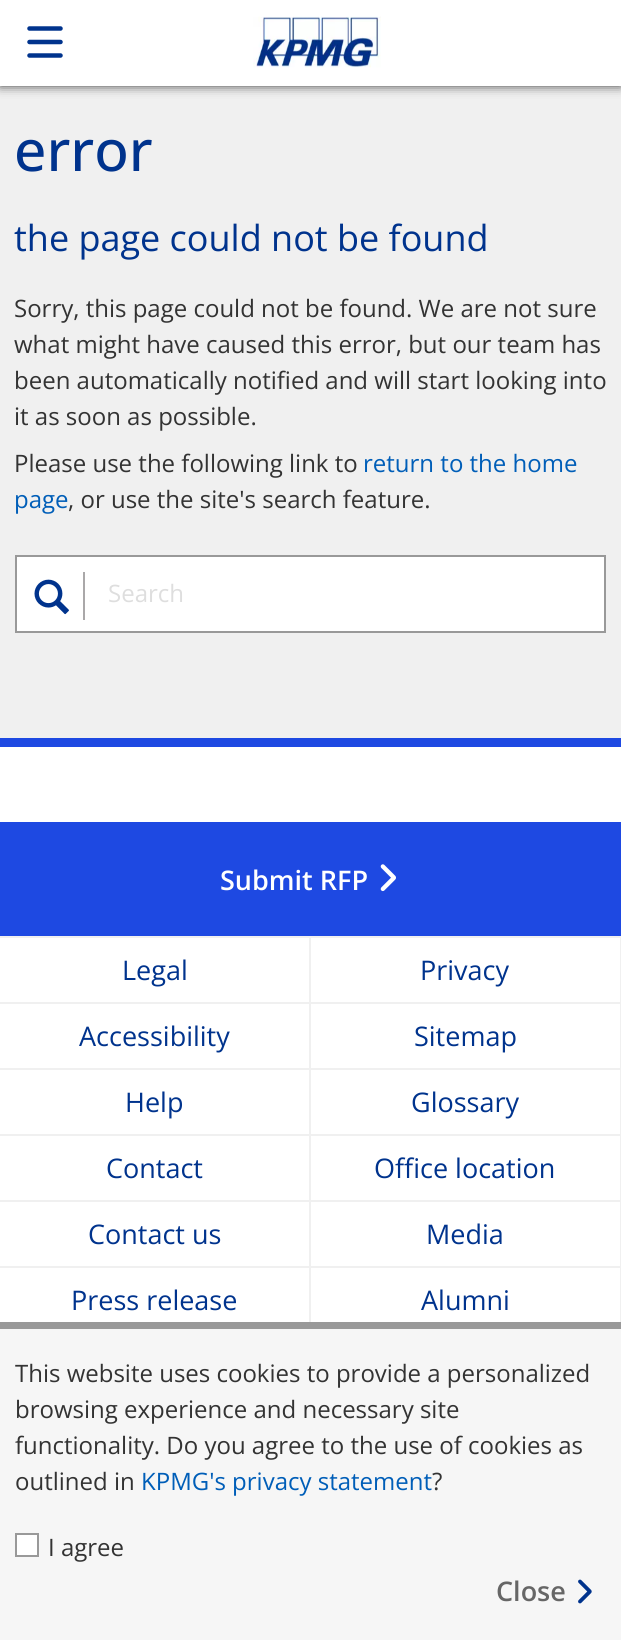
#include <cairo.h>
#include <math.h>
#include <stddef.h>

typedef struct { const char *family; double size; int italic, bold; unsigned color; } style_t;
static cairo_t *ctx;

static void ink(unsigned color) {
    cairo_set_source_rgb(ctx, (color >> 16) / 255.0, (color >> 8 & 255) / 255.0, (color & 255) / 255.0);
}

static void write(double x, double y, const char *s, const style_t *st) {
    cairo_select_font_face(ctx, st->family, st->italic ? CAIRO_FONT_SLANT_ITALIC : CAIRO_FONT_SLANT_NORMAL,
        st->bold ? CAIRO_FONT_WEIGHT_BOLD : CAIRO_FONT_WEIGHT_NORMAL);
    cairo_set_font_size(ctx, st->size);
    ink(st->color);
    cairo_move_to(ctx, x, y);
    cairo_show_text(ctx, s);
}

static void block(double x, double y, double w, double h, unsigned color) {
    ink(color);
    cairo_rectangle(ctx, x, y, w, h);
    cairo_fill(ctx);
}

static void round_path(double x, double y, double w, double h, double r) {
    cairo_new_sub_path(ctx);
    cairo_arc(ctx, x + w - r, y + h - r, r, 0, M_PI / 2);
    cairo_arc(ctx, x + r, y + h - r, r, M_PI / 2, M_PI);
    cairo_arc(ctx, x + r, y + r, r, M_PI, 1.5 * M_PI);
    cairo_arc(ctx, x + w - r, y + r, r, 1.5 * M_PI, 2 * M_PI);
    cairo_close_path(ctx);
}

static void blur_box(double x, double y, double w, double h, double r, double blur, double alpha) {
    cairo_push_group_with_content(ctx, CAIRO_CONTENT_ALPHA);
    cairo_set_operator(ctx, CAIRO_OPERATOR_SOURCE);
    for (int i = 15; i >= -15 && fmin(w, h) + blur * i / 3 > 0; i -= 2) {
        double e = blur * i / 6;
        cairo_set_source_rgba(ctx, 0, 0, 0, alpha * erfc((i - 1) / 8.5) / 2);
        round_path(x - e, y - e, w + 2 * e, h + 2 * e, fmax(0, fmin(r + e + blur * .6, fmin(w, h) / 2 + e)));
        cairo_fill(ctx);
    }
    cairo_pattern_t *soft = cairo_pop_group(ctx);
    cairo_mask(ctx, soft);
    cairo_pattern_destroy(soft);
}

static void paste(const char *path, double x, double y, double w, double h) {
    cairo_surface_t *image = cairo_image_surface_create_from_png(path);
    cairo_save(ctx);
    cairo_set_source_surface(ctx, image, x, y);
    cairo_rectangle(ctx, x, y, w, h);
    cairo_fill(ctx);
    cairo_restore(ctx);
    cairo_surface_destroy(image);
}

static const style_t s1 = {"Open Sans Medium", 57, 0, 0, 0x00338d};
static const style_t s2 = {"Open Sans", 36, 0, 0, 0x00338d};
static const style_t s3 = {"Open Sans", 24, 0, 0, 0x333333};
static const style_t s4 = {"Open Sans", 24, 0, 0, 0x005eb8};
static const style_t s5 = {"Open Sans", 24, 0, 0, 0xdedede};
static const style_t s6 = {"Open Sans SemiBold", 27, 0, 0, 0xffffff};
static const style_t s7 = {"Open Sans", 27, 0, 0, 0x00338d};
static const style_t s8 = {"Open Sans SemiBold", 27, 0, 0, 0x666666};

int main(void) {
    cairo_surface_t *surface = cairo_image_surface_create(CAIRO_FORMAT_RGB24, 621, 1640);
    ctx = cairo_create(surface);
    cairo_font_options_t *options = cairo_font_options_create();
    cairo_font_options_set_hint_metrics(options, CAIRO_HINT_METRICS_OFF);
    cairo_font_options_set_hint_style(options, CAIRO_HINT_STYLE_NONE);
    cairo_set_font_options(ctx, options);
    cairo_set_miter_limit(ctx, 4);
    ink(0xf0f0f0);
    cairo_paint(ctx);
    ink(0x000000);
    blur_box(0, -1, 621, 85, 0, 6, 1);
    block(0, 0, 621, 86, 0xffffff);
    cairo_new_path(ctx);
    cairo_move_to(ctx, 29.5, 28.5);
    cairo_line_to(ctx, 60.5, 28.5);
    cairo_move_to(ctx, 29.5, 42);
    cairo_line_to(ctx, 60.5, 42);
    cairo_move_to(ctx, 29.5, 55.5);
    cairo_line_to(ctx, 60.5, 55.5);
    ink(0x00338d);
    cairo_set_line_width(ctx, 4.5);
    cairo_set_line_cap(ctx, CAIRO_LINE_CAP_ROUND);
    cairo_stroke(ctx);
    paste("pic1.png", 253, 16, 128, 52);
    write(14, 171, "error", &s1);
    write(14, 251, "the page could not be found", &s2);
    write(14, 317, "Sorry, this page could not be found. We are not sure", &s3);
    write(14, 353, "what might have caused this error, but our team has", &s3);
    write(14, 389, "been automatically notified and will start looking into", &s3);
    write(14, 425, "it as soon as possible.", &s3);
    write(14, 472, "Please use the following link to", &s3);
    write(363, 472, "return to the home", &s4);
    write(14, 508, "page", &s4);
    write(68, 508, ", or use the site's search feature.", &s3);
    ink(0xffffff);
    cairo_rectangle(ctx, 16, 556, 589, 76);
    cairo_fill_preserve(ctx);
    ink(0x999999);
    cairo_set_line_width(ctx, 2);
    cairo_set_line_cap(ctx, CAIRO_LINE_CAP_BUTT);
    cairo_stroke(ctx);
    paste("pic2.png", 34, 579, 35, 36);
    block(83, 572, 2, 48, 0xaaa8a9);
    write(108, 602, "Search", &s5);
    block(0, 747, 621, 575, 0xffffff);
    block(0, 738, 621, 9, 0x1e49e2);
    block(0, 822, 621, 114, 0x1e49e2);
    write(220, 890, "Submit RFP", &s6);
    paste("pic3.png", 380, 864, 16, 28);
    block(0, 936, 621, 2, 0xf0f0f0);
    block(309, 938, 2, 384, 0xf0f0f0);
    block(0, 1002, 311, 2, 0xf0f0f0);
    write(122, 980, "Legal", &s7);
    block(620, 938, 1, 384, 0xf0f0f0);
    block(311, 1002, 310, 2, 0xf0f0f0);
    write(420, 980, "Privacy", &s7);
    block(0, 1068, 621, 2, 0xf0f0f0);
    write(79, 1046, "Accessibility", &s7);
    write(414, 1046, "Sitemap", &s7);
    block(0, 1134, 621, 2, 0xf0f0f0);
    write(125, 1112, "Help", &s7);
    write(411, 1112, "Glossary", &s7);
    block(0, 1200, 621, 2, 0xf0f0f0);
    write(106, 1178, "Contact", &s7);
    write(374, 1178, "Office location", &s7);
    block(0, 1266, 621, 2, 0xf0f0f0);
    write(88, 1244, "Contact us", &s7);
    write(426, 1244, "Media", &s7);
    write(71, 1310, "Press release", &s7);
    write(421, 1310, "Alumni", &s7);
    block(0, 1329, 621, 311, 0xf6f6f6);
    block(0, 1322, 621, 7, 0x999999);
    write(15, 1382, "This website uses cookies to provide a personalized", &s3);
    write(15, 1418, "browsing experience and necessary site", &s3);
    write(15, 1454, "functionality. Do you agree to the use of cookies as", &s3);
    write(15, 1490, "outlined in", &s3);
    write(141, 1490, "KPMG's privacy statement", &s4);
    write(432, 1490, "?", &s3);
    ink(0xffffff);
    cairo_rectangle(ctx, 16, 1534, 22, 22);
    cairo_fill_preserve(ctx);
    ink(0x999999);
    cairo_stroke(ctx);
    write(48, 1556, "I agree", &s3);
    write(496, 1601, "Close", &s8);
    paste("pic4.png", 578, 1579, 14, 25);
    cairo_surface_write_to_png(surface, "screenshot.png");
    cairo_font_options_destroy(options);
    cairo_destroy(ctx);
    cairo_surface_destroy(surface);
    return 0;
}
